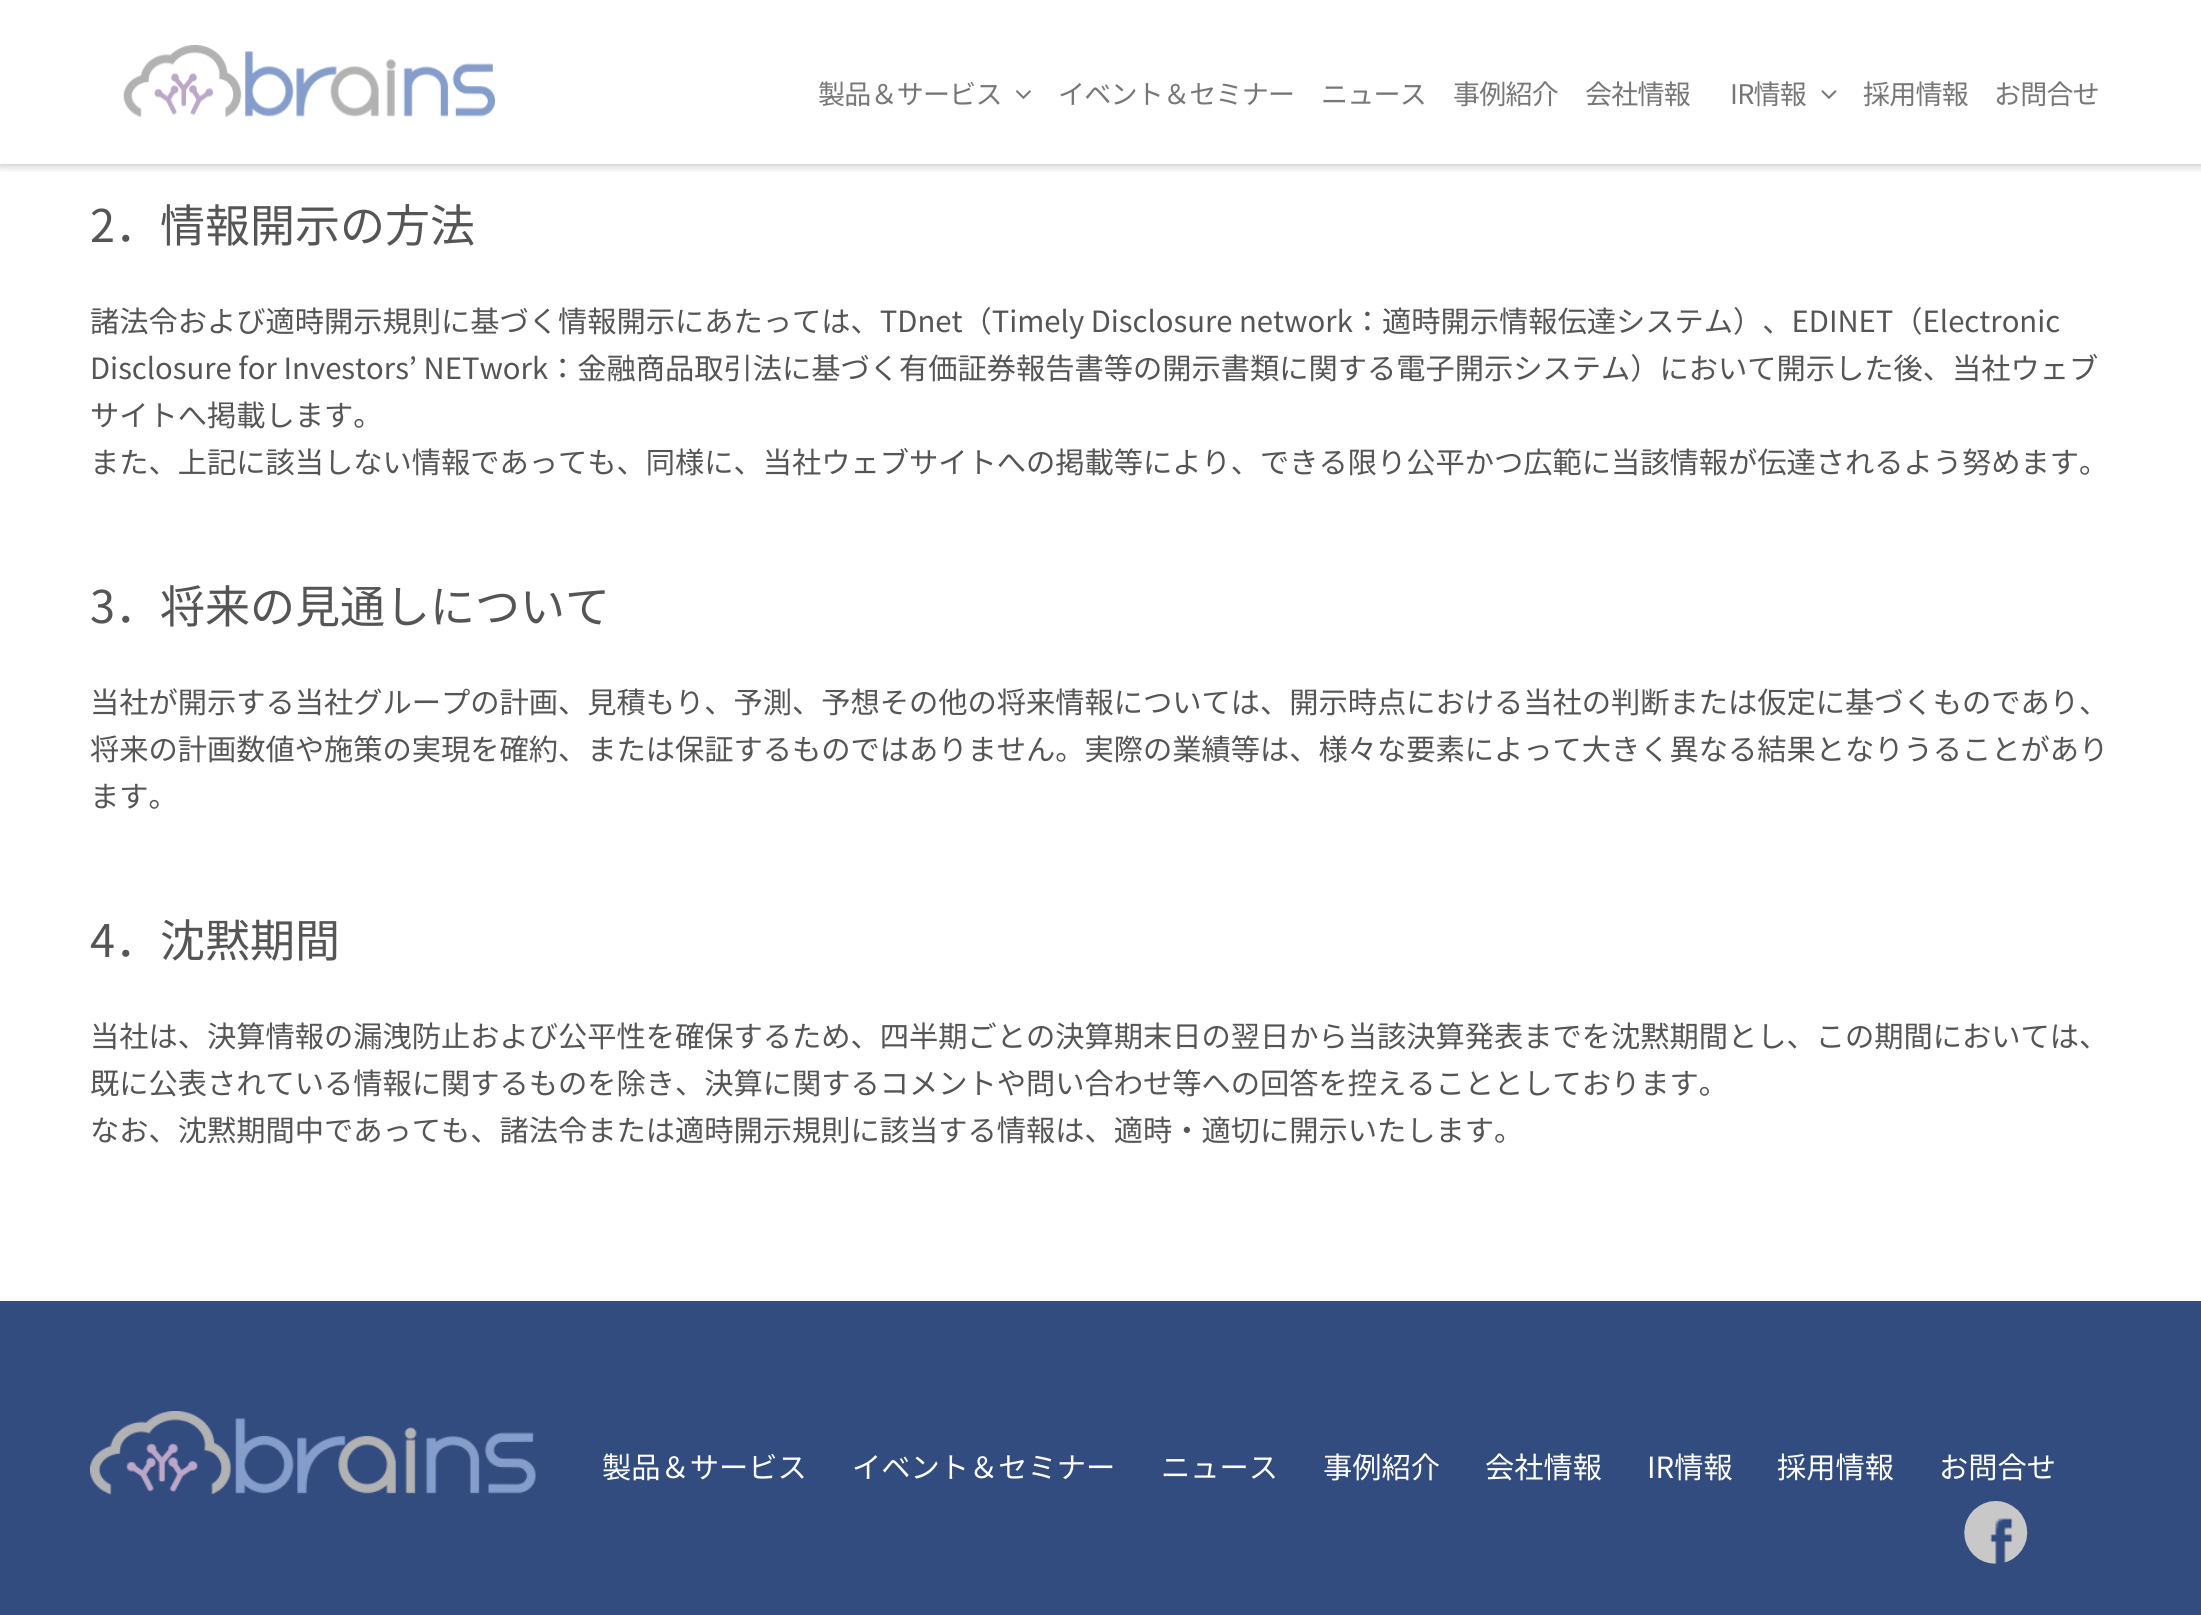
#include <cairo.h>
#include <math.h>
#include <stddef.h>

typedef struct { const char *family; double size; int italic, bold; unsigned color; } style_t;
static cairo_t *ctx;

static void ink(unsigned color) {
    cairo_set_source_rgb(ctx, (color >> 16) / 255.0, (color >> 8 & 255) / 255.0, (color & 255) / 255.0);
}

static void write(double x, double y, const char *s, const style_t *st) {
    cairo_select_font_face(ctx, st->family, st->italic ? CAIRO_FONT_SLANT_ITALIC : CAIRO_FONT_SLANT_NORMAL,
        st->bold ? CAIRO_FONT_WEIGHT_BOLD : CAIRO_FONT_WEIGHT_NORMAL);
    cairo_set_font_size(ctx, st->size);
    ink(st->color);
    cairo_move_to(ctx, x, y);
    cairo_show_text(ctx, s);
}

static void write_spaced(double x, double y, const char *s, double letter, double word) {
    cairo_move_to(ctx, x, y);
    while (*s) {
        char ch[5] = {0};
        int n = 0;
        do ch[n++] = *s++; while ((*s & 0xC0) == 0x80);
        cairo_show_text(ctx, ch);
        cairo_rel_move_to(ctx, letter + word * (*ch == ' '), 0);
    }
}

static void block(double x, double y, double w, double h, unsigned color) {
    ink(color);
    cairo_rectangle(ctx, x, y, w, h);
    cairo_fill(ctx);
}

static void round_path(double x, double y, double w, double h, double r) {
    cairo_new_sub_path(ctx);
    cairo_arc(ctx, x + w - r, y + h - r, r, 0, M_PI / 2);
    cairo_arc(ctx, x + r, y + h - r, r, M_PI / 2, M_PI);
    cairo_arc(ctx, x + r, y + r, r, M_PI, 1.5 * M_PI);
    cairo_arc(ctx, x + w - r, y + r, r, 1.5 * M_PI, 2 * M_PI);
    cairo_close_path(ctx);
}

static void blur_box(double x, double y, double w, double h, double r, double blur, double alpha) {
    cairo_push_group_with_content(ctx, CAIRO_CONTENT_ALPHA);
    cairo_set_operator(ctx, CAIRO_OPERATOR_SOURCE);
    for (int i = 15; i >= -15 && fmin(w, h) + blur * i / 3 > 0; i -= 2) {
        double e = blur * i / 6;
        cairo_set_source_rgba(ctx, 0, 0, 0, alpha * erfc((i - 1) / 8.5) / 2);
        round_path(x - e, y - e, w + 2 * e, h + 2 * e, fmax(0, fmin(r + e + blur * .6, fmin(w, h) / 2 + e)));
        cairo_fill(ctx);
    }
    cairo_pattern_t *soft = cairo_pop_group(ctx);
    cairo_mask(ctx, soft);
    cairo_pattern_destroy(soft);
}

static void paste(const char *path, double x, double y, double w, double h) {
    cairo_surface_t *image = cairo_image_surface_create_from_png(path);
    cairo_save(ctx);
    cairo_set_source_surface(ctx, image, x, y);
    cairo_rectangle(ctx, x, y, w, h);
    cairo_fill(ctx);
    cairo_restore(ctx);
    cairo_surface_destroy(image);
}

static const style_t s1 = {"Noto Sans JP", 45, 0, 0, 0x555555};
static const style_t s2 = {"Noto Sans JP", 29.25, 0, 0, 0x555555};
static const style_t s3 = {"Noto Sans JP", 29.25, 0, 0, 0xffffff};

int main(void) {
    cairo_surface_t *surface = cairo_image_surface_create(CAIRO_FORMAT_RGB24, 2201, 1615);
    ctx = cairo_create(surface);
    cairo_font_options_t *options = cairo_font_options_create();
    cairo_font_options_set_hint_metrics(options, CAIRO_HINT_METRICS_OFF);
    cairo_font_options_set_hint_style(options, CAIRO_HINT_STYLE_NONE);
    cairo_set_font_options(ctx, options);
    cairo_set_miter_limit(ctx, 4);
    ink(0xffffff);
    cairo_paint(ctx);
    cairo_save(ctx);
    cairo_rectangle(ctx, 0, 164, 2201, 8);
    cairo_clip(ctx);
    ink(0x000000);
    blur_box(0, 0, 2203, 164, 0, 5.5, 0.3);
    cairo_restore(ctx);
    paste("pic1.png", 123, 45, 372, 72);
    cairo_select_font_face(ctx, "Noto Sans JP", CAIRO_FONT_SLANT_NORMAL, CAIRO_FONT_WEIGHT_NORMAL);
    cairo_set_font_size(ctx, 27);
    ink(0x777777);
    write_spaced(818, 104, "製品＆サービス", -0.75, 0);
    paste("pic2.png", 1016, 90, 15, 9);
    write_spaced(1058, 104, "イベント＆セミナー", -0.75, 0);
    write_spaced(1321, 104, "ニュース", -0.75, 0);
    write_spaced(1453, 104, "事例紹介", -0.75, 0);
    write_spaced(1585, 104, "会社情報", -0.75, 0);
    write_spaced(1730, 104, "IR情報", -0.75, 0);
    paste("pic3.png", 1821, 90, 16, 9);
    write_spaced(1863, 104, "採用情報", -0.75, 0);
    write_spaced(1994, 104, "お問合せ", -0.75, 0);
    write(90, 242, "2．情報開示の方法", &s1);
    write(90, 332, "諸法令および適時開示規則に基づく情報開示にあたっては、TDnet（Timely Disclosure network：適時開示情報伝達システム）、EDINET（Electronic", &s2);
    write(90, 379, "Disclosure for Investors’ NETwork：金融商品取引法に基づく有価証券報告書等の開示書類に関する電子開示システム）において開示した後、当社ウェブ", &s2);
    write(90, 426, "サイトへ掲載します。", &s2);
    write(90, 473, "また、上記に該当しない情報であっても、同様に、当社ウェブサイトへの掲載等により、できる限り公平かつ広範に当該情報が伝達されるよう努めます。", &s2);
    write(90, 623, "3．将来の見通しについて", &s1);
    write(90, 713, "当社が開示する当社グループの計画、見積もり、予測、予想その他の将来情報については、開示時点における当社の判断または仮定に基づくものであり、", &s2);
    write(90, 760, "将来の計画数値や施策の実現を確約、または保証するものではありません。実際の業績等は、様々な要素によって大きく異なる結果となりうることがあり", &s2);
    write(90, 807, "ます。", &s2);
    write(90, 957, "4．沈黙期間", &s1);
    write(90, 1047, "当社は、決算情報の漏洩防止および公平性を確保するため、四半期ごとの決算期末日の翌日から当該決算発表までを沈黙期間とし、この期間においては、", &s2);
    write(90, 1094, "既に公表されている情報に関するものを除き、決算に関するコメントや問い合わせ等への回答を控えることとしております。", &s2);
    write(90, 1141, "なお、沈黙期間中であっても、諸法令または適時開示規則に該当する情報は、適時・適切に開示いたします。", &s2);
    block(0, 1301, 2201, 314, 0x324c80);
    paste("pic4.png", 90, 1411, 446, 84);
    write(602, 1478, "製品＆サービス", &s3);
    write(852, 1478, "イベント＆セミナー", &s3);
    write(1161, 1478, "ニュース", &s3);
    write(1323, 1478, "事例紹介", &s3);
    write(1485, 1478, "会社情報", &s3);
    write(1647, 1478, "IR情報", &s3);
    write(1777, 1478, "採用情報", &s3);
    write(1939, 1478, "お問合せ", &s3);
    paste("pic5.png", 1964, 1501, 64, 63);
    cairo_surface_write_to_png(surface, "screenshot.png");
    cairo_font_options_destroy(options);
    cairo_destroy(ctx);
    cairo_surface_destroy(surface);
    return 0;
}
